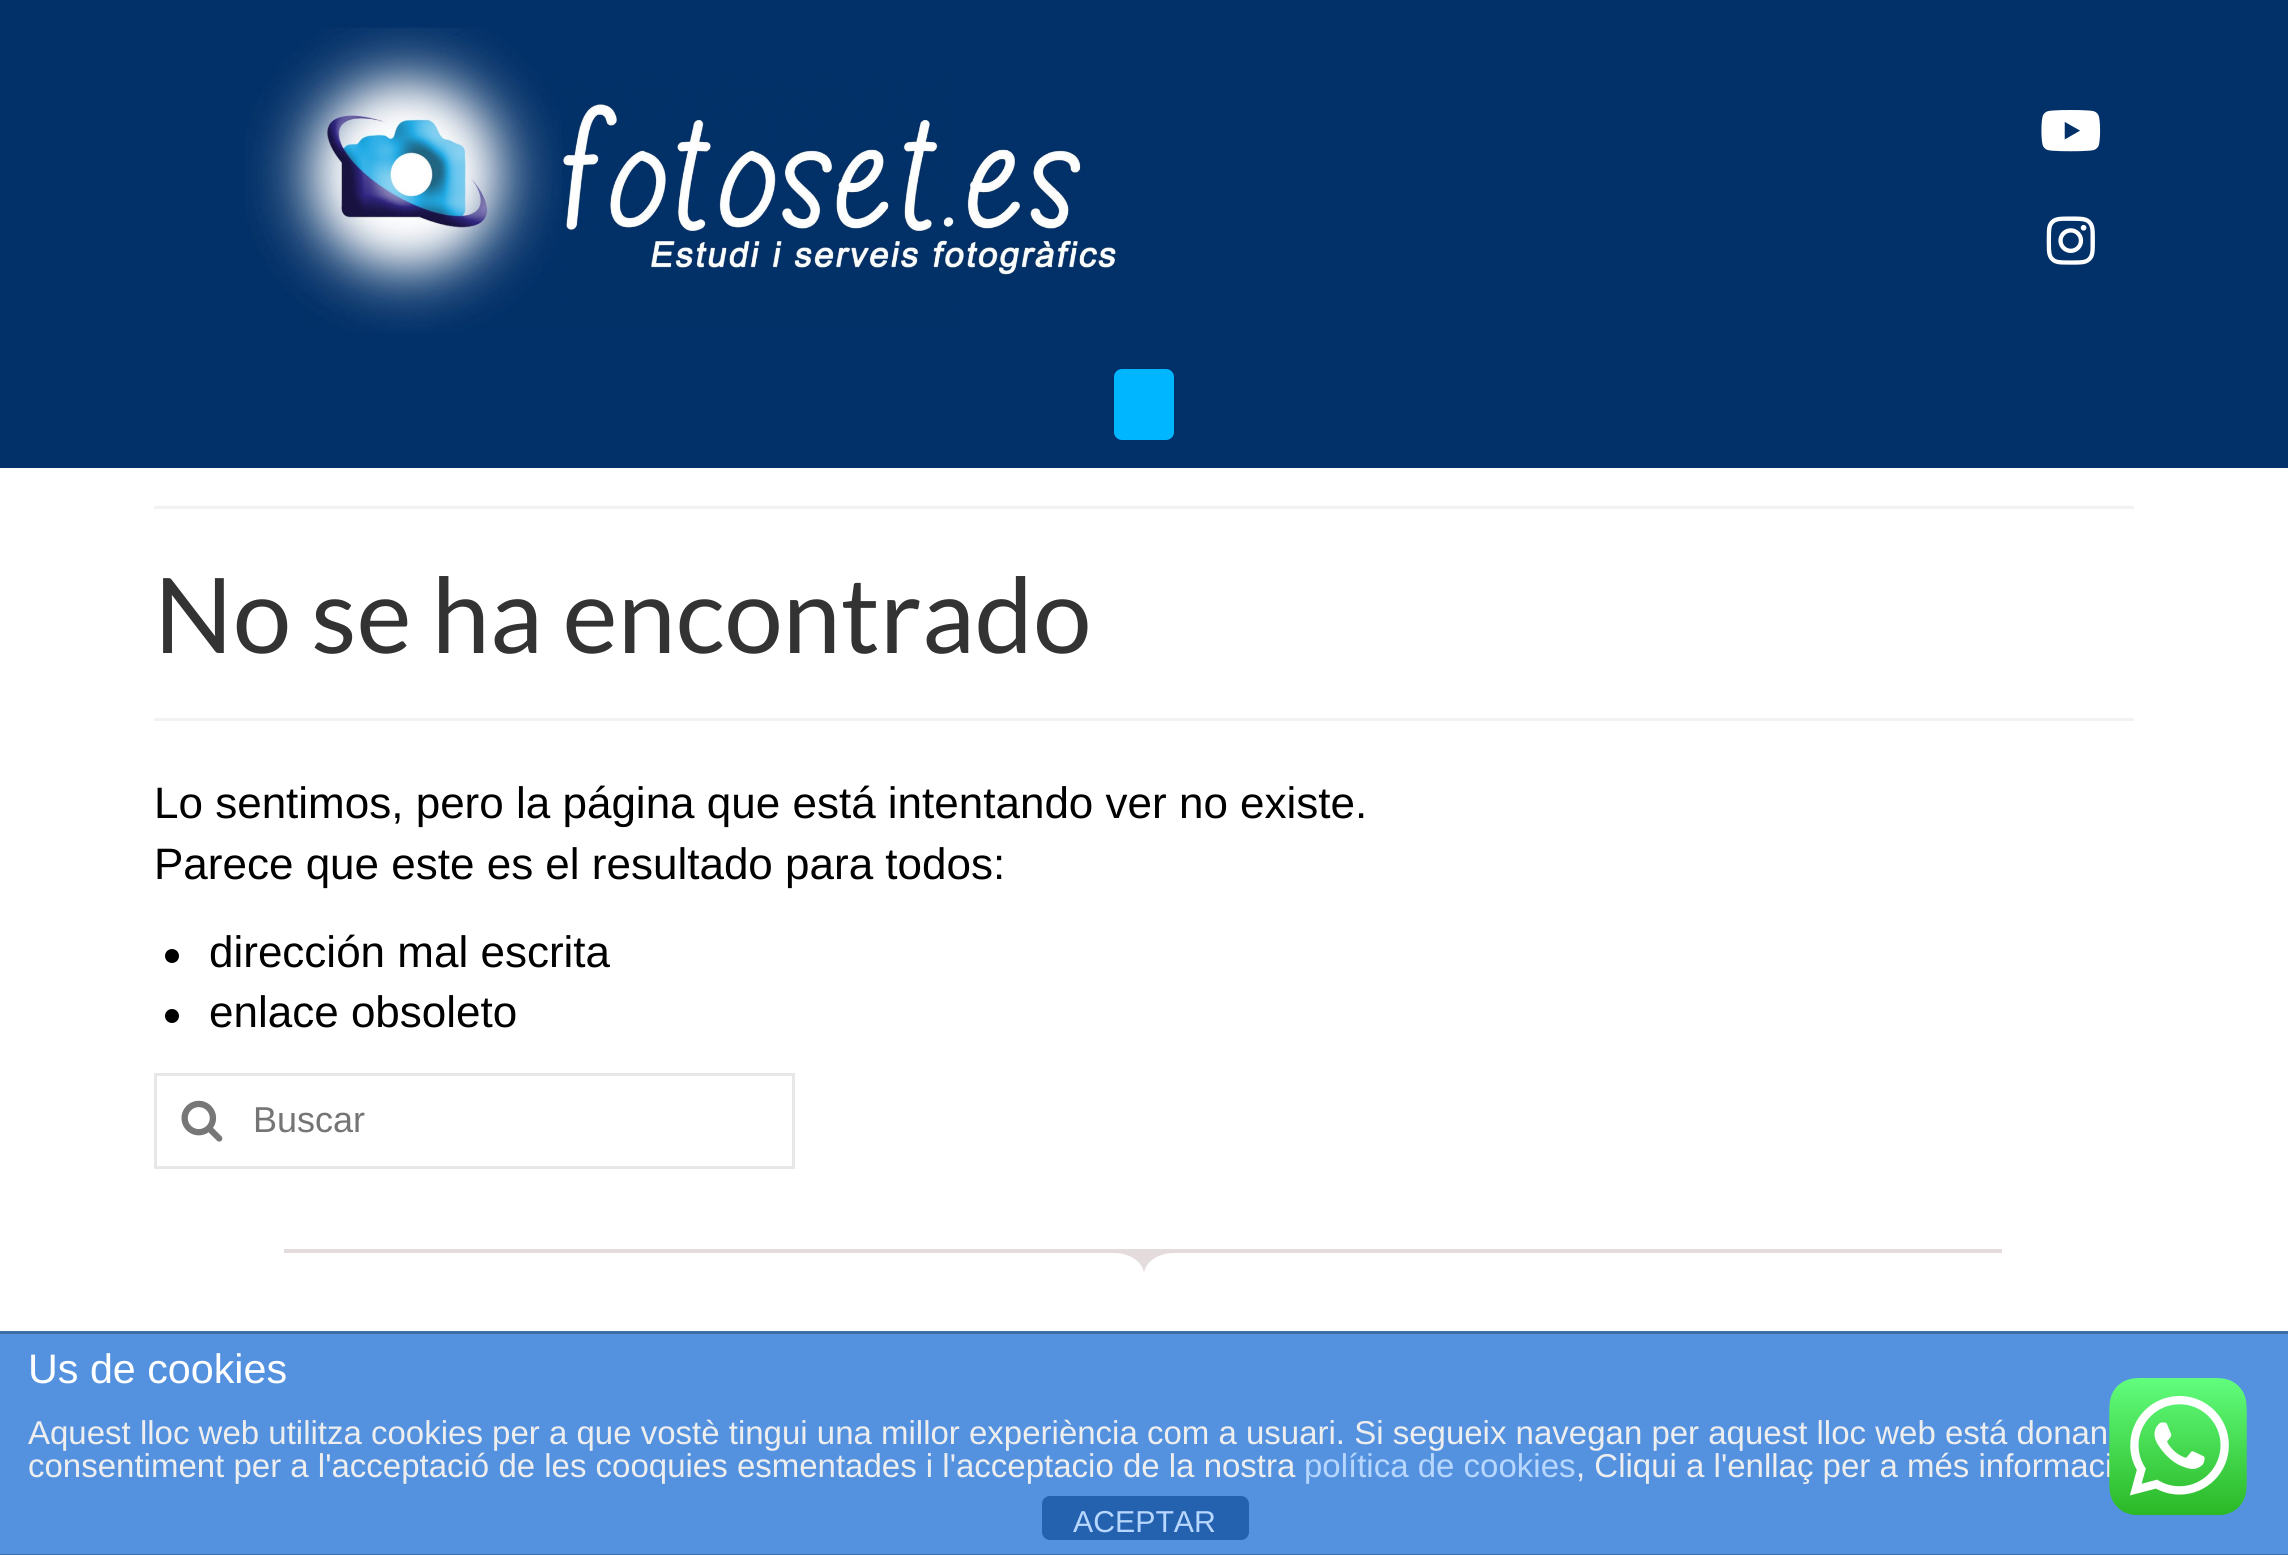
#include <cairo.h>
#include <math.h>
#include <stddef.h>

typedef struct { const char *family; double size; int italic, bold; unsigned color; } style_t;
static cairo_t *ctx;

static void ink(unsigned color) {
    cairo_set_source_rgb(ctx, (color >> 16) / 255.0, (color >> 8 & 255) / 255.0, (color & 255) / 255.0);
}

static void write(double x, double y, const char *s, const style_t *st) {
    cairo_select_font_face(ctx, st->family, st->italic ? CAIRO_FONT_SLANT_ITALIC : CAIRO_FONT_SLANT_NORMAL,
        st->bold ? CAIRO_FONT_WEIGHT_BOLD : CAIRO_FONT_WEIGHT_NORMAL);
    cairo_set_font_size(ctx, st->size);
    ink(st->color);
    cairo_move_to(ctx, x, y);
    cairo_show_text(ctx, s);
}

static void block(double x, double y, double w, double h, unsigned color) {
    ink(color);
    cairo_rectangle(ctx, x, y, w, h);
    cairo_fill(ctx);
}

static void round_path(double x, double y, double w, double h, double r) {
    cairo_new_sub_path(ctx);
    cairo_arc(ctx, x + w - r, y + h - r, r, 0, M_PI / 2);
    cairo_arc(ctx, x + r, y + h - r, r, M_PI / 2, M_PI);
    cairo_arc(ctx, x + r, y + r, r, M_PI, 1.5 * M_PI);
    cairo_arc(ctx, x + w - r, y + r, r, 1.5 * M_PI, 2 * M_PI);
    cairo_close_path(ctx);
}

static void paste(const char *path, double x, double y, double w, double h) {
    cairo_surface_t *image = cairo_image_surface_create_from_png(path);
    cairo_save(ctx);
    cairo_set_source_surface(ctx, image, x, y);
    cairo_rectangle(ctx, x, y, w, h);
    cairo_fill(ctx);
    cairo_restore(ctx);
    cairo_surface_destroy(image);
}

static const style_t s1 = {"Lato", 104.5, 0, 0, 0x333333};
static const style_t s2 = {"Liberation Sans", 44, 0, 0, 0x000000};
static const style_t s3 = {"Liberation Sans", 36, 0, 0, 0x757575};
static const style_t s4 = {"Liberation Sans", 41.25, 0, 0, 0xffffff};
static const style_t s5 = {"Liberation Sans", 33, 0, 0, 0xeeeeee};
static const style_t s6 = {"Liberation Sans", 33, 0, 0, 0xb7d7ff};
static const style_t s7 = {"Liberation Sans", 30.25, 0, 0, 0xb7d7ff};

int main(void) {
    cairo_surface_t *surface = cairo_image_surface_create(CAIRO_FORMAT_RGB24, 2288, 1555);
    ctx = cairo_create(surface);
    cairo_font_options_t *options = cairo_font_options_create();
    cairo_font_options_set_hint_metrics(options, CAIRO_HINT_METRICS_OFF);
    cairo_font_options_set_hint_style(options, CAIRO_HINT_STYLE_NONE);
    cairo_set_font_options(ctx, options);
    cairo_set_miter_limit(ctx, 4);
    ink(0xffffff);
    cairo_paint(ctx);
    block(0, 0, 2288, 468, 0x023169);
    paste("pic1.png", 245, 27, 875, 305);
    paste("pic2.png", 2041, 110, 60, 42);
    paste("pic3.png", 2046, 216, 49, 49);
    ink(0x00b6ff);
    round_path(1114, 369, 60, 71, 8);
    cairo_fill(ctx);
    block(154, 506, 1980, 3, 0xf2f2f2);
    block(154, 718, 1980, 3, 0xf2f2f2);
    write(154, 653, "No se ha encontrado", &s1);
    write(154, 818, "Lo sentimos, pero la página que está intentando ver no existe.", &s2);
    write(154, 879, "Parece que este es el resultado para todos:", &s2);
    cairo_new_path(ctx);
    cairo_arc(ctx, 172, 956, 7, 0, 2 * M_PI);
    cairo_fill(ctx);
    write(209, 967, "dirección mal escrita", &s2);
    cairo_new_path(ctx);
    cairo_arc(ctx, 172, 1016, 7, 0, 2 * M_PI);
    cairo_fill(ctx);
    write(209, 1027, "enlace obsoleto", &s2);
    cairo_rectangle(ctx, 155.5, 1074.5, 638, 93);
    ink(0xe7e7e7);
    cairo_set_line_width(ctx, 3);
    cairo_stroke(ctx);
    paste("pic4.png", 181, 1100, 42, 42);
    write(253, 1132, "Buscar", &s3);
    cairo_save(ctx);
    cairo_rectangle(ctx, 283, 1249, 1719, 27);
    cairo_clip(ctx);
    ink(0xe4dcdc);
    cairo_new_path(ctx);
    cairo_move_to(ctx, 284, 1248);
    cairo_line_to(ctx, 284, 1253);
    cairo_line_to(ctx, 1115, 1253);
    cairo_curve_to(ctx, 1128, 1253, 1144, 1261, 1144, 1275);
    cairo_curve_to(ctx, 1144, 1261, 1160, 1253, 1173, 1253);
    cairo_line_to(ctx, 2004, 1253);
    cairo_line_to(ctx, 2004, 1248);
    cairo_close_path(ctx);
    cairo_fill(ctx);
    cairo_restore(ctx);
    block(0, 1334, 2288, 220, 0x5492e0);
    block(0, 1331, 2288, 3, 0x3f6da7);
    block(0, 1554, 2288, 1, 0x3f6da7);
    write(28, 1383, "Us de cookies", &s4);
    write(28, 1444, "Aquest lloc web utilitza cookies per a que vostè tingui una millor experiència com a usuari. Si segueix navegan per aquest lloc web está donan", &s5);
    write(28, 1477, "consentiment per a l'acceptació de les cooquies esmentades i l'acceptacio de la nostra", &s5);
    write(1304, 1477, "política de cookies", &s6);
    write(1576, 1477, ", Cliqui a l'enllaç per a més informaci", &s5);
    ink(0x2462b0);
    round_path(1042, 1496, 207, 44, 8);
    cairo_fill(ctx);
    write(1073, 1532, "ACEPTAR", &s7);
    paste("pic5.png", 2109, 1378, 138, 137);
    cairo_surface_write_to_png(surface, "screenshot.png");
    cairo_font_options_destroy(options);
    cairo_destroy(ctx);
    cairo_surface_destroy(surface);
    return 0;
}
